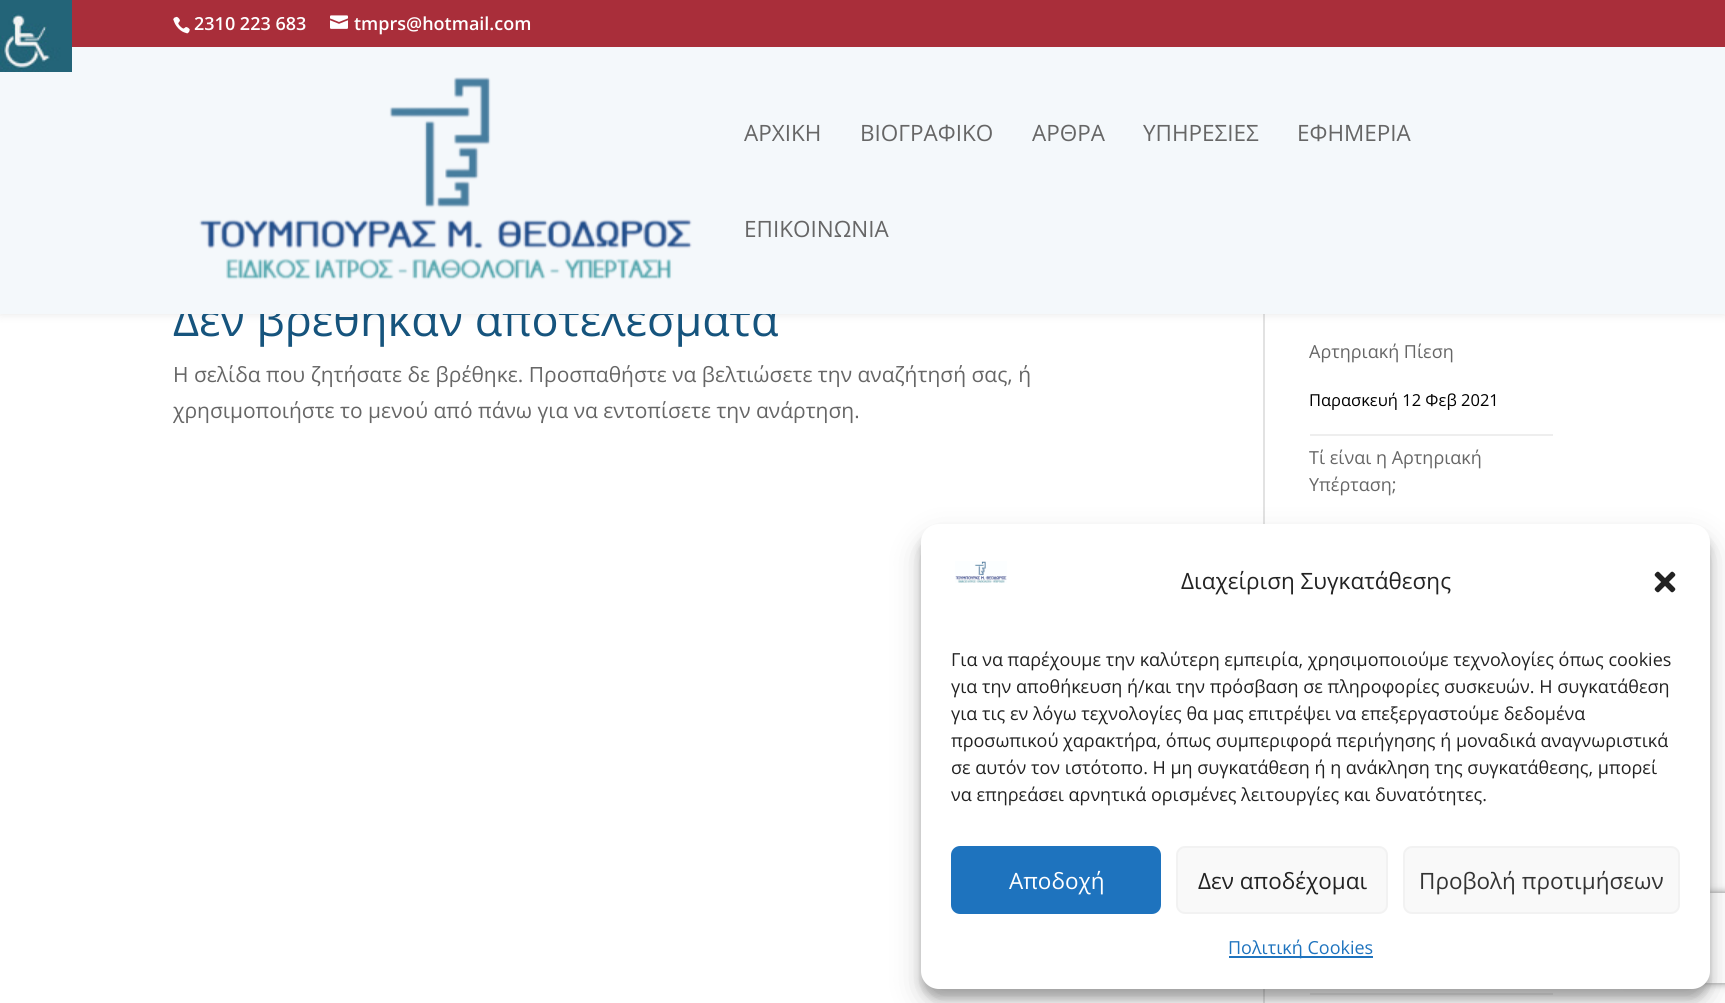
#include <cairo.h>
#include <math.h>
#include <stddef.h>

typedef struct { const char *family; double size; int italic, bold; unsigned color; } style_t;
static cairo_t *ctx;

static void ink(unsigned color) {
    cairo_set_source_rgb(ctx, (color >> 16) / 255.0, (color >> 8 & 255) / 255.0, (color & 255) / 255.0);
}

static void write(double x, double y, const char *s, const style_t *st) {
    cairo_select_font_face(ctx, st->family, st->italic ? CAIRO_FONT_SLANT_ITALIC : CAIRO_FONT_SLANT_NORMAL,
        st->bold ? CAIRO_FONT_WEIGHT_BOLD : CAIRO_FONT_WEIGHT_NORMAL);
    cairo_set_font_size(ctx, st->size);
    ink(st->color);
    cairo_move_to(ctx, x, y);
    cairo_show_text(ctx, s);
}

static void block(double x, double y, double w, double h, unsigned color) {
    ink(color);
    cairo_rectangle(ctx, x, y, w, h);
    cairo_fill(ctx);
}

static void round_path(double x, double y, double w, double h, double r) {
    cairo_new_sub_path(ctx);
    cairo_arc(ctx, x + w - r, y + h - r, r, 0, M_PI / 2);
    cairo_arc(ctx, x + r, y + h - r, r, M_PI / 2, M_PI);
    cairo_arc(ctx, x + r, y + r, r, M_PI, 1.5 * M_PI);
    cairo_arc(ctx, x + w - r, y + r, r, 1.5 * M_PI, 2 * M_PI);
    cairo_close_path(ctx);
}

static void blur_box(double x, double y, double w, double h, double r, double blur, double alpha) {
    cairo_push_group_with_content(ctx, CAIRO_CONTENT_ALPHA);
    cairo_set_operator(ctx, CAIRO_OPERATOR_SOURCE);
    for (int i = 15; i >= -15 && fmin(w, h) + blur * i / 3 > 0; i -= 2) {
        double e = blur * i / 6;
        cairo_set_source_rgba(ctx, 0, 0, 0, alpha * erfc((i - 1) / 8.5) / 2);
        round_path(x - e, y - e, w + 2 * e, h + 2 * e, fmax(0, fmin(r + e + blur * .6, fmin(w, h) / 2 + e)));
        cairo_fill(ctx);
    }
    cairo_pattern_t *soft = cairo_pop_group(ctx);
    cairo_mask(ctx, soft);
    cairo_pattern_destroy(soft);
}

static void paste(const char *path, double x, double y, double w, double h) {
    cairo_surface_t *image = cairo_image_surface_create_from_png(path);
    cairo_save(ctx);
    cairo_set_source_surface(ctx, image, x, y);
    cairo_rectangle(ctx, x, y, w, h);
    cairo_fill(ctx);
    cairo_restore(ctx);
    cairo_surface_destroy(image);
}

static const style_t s1 = {"Open Sans", 45, 0, 0, 0x16547d};
static const style_t s2 = {"Open Sans SemiBold", 18, 0, 0, 0xffffff};
static const style_t s3 = {"Open Sans", 22.5, 0, 0, 0x666666};
static const style_t s4 = {"Open Sans", 21, 0, 0, 0x666666};
static const style_t s5 = {"Open Sans", 18, 0, 0, 0x666666};
static const style_t s6 = {"Open Sans", 16.5, 0, 0, 0x000000};
static const style_t s7 = {"Open Sans", 22.5, 0, 0, 0x222222};
static const style_t s8 = {"Open Sans", 18, 0, 0, 0x222222};
static const style_t s9 = {"Open Sans", 22.5, 0, 0, 0xffffff};
static const style_t s10 = {"Open Sans", 22.5, 0, 0, 0x333333};
static const style_t s11 = {"Open Sans", 18, 0, 0, 0x1e73be};

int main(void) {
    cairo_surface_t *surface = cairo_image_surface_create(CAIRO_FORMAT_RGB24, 1725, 1003);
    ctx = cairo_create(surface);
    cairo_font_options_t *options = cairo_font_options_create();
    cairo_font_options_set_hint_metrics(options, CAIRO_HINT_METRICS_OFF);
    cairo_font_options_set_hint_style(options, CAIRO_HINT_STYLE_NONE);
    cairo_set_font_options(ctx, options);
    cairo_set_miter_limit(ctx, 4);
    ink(0xffffff);
    cairo_paint(ctx);
    block(1263, 314, 2, 689, 0xe2e2e2);
    ink(0x000000);
    blur_box(0, 47, 1725, 267, 0, 5, 0.1);
    write(173, 336, "Δεν βρέθηκαν αποτελέσματα", &s1);
    block(0, 47, 1725, 267, 0xf4f8fb);
    paste("pic1.png", 0, 0, 72, 72);
    block(72, 0, 1653, 47, 0xa92e3a);
    paste("pic2.png", 173, 16, 17, 18);
    write(194, 30, "2310 223 683", &s2);
    paste("pic3.png", 330, 15, 18, 14);
    write(354, 30, "tmprs@hotmail.com", &s2);
    paste("pic4.png", 199, 77, 493, 203);
    write(744, 141, "ΑΡΧΙΚΗ", &s3);
    write(860, 141, "ΒΙΟΓΡΑΦΙΚΟ", &s3);
    write(1032, 141, "ΑΡΘΡΑ", &s3);
    write(1143, 141, "ΥΠΗΡΕΣΙΕΣ", &s3);
    write(1297, 141, "ΕΦΗΜΕΡΙΑ", &s3);
    write(744, 237, "ΕΠΙΚΟΙΝΩΝΙΑ", &s3);
    write(173, 382, "Η σελίδα που ζητήσατε δε βρέθηκε. Προσπαθήστε να βελτιώσετε την αναζήτησή σας, ή", &s4);
    write(173, 418, "χρησιμοποιήστε το μενού από πάνω για να εντοπίσετε την ανάρτηση.", &s4);
    block(1310, 434, 243, 2, 0xeeeeee);
    write(1309, 358, "Αρτηριακή Πίεση", &s5);
    write(1309, 406, "Παρασκευή 12 Φεβ 2021", &s6);
    write(1309, 464, "Τί είναι η Αρτηριακή", &s5);
    write(1309, 491, "Υπέρταση;", &s5);
    block(1310, 993, 243, 2, 0xeeeeee);
    ink(0x000000);
    blur_box(921, 533, 789, 465, 18, 4.5, 0.23);
    blur_box(921, 539, 789, 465, 18, 15, 0.19);
    cairo_save(ctx);
    cairo_set_fill_rule(ctx, CAIRO_FILL_RULE_EVEN_ODD);
    cairo_new_path(ctx);
    cairo_move_to(ctx, 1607, 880);
    cairo_line_to(ctx, 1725, 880);
    cairo_line_to(ctx, 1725, 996);
    cairo_line_to(ctx, 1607, 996);
    cairo_close_path(ctx);
    cairo_move_to(ctx, 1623, 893);
    cairo_line_to(ctx, 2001, 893);
    cairo_curve_to(ctx, 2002.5, 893, 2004, 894.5, 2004, 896);
    cairo_line_to(ctx, 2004, 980);
    cairo_curve_to(ctx, 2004, 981.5, 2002.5, 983, 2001, 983);
    cairo_line_to(ctx, 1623, 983);
    cairo_curve_to(ctx, 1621.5, 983, 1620, 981.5, 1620, 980);
    cairo_line_to(ctx, 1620, 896);
    cairo_curve_to(ctx, 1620, 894.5, 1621.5, 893, 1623, 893);
    cairo_close_path(ctx);
    cairo_clip(ctx);
    ink(0x808080);
    blur_box(1620, 893, 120, 90, 3, 4, 1);
    cairo_restore(ctx);
    ink(0xffffff);
    round_path(921, 524, 789, 465, 18);
    cairo_fill(ctx);
    paste("pic5.png", 955, 561, 52, 22);
    write(1181, 589, "Διαχείριση Συγκατάθεσης", &s7);
    paste("pic6.png", 1654, 571, 22, 22);
    write(951, 666, "Για να παρέχουμε την καλύτερη εμπειρία, χρησιμοποιούμε τεχνολογίες όπως cookies", &s8);
    write(951, 693, "για την αποθήκευση ή/και την πρόσβαση σε πληροφορίες συσκευών. Η συγκατάθεση", &s8);
    write(951, 720, "για τις εν λόγω τεχνολογίες θα μας επιτρέψει να επεξεργαστούμε δεδομένα", &s8);
    write(951, 747, "προσωπικού χαρακτήρα, όπως συμπεριφορά περιήγησης ή μοναδικά αναγνωριστικά", &s8);
    write(951, 774, "σε αυτόν τον ιστότοπο. Η μη συγκατάθεση ή η ανάκληση της συγκατάθεσης, μπορεί", &s8);
    write(951, 801, "να επηρεάσει αρνητικά ορισμένες λειτουργίες και δυνατότητες.", &s8);
    ink(0x1e73be);
    round_path(952, 847, 208, 66, 8);
    cairo_fill_preserve(ctx);
    cairo_stroke(ctx);
    write(1009, 889, "Αποδοχή", &s9);
    ink(0xf9f9f9);
    round_path(1177, 847, 210, 66, 8);
    cairo_fill_preserve(ctx);
    ink(0xf2f2f2);
    cairo_stroke(ctx);
    write(1198, 889, "Δεν αποδέχομαι", &s7);
    ink(0xf9f9f9);
    round_path(1404, 847, 275, 66, 8);
    cairo_fill_preserve(ctx);
    ink(0xf2f2f2);
    cairo_stroke(ctx);
    write(1419, 889, "Προβολή προτιμήσεων", &s10);
    block(1229, 956, 144, 2, 0x1e73be);
    write(1228, 954, "Πολιτική Cookies", &s11);
    cairo_surface_write_to_png(surface, "screenshot.png");
    cairo_font_options_destroy(options);
    cairo_destroy(ctx);
    cairo_surface_destroy(surface);
    return 0;
}
